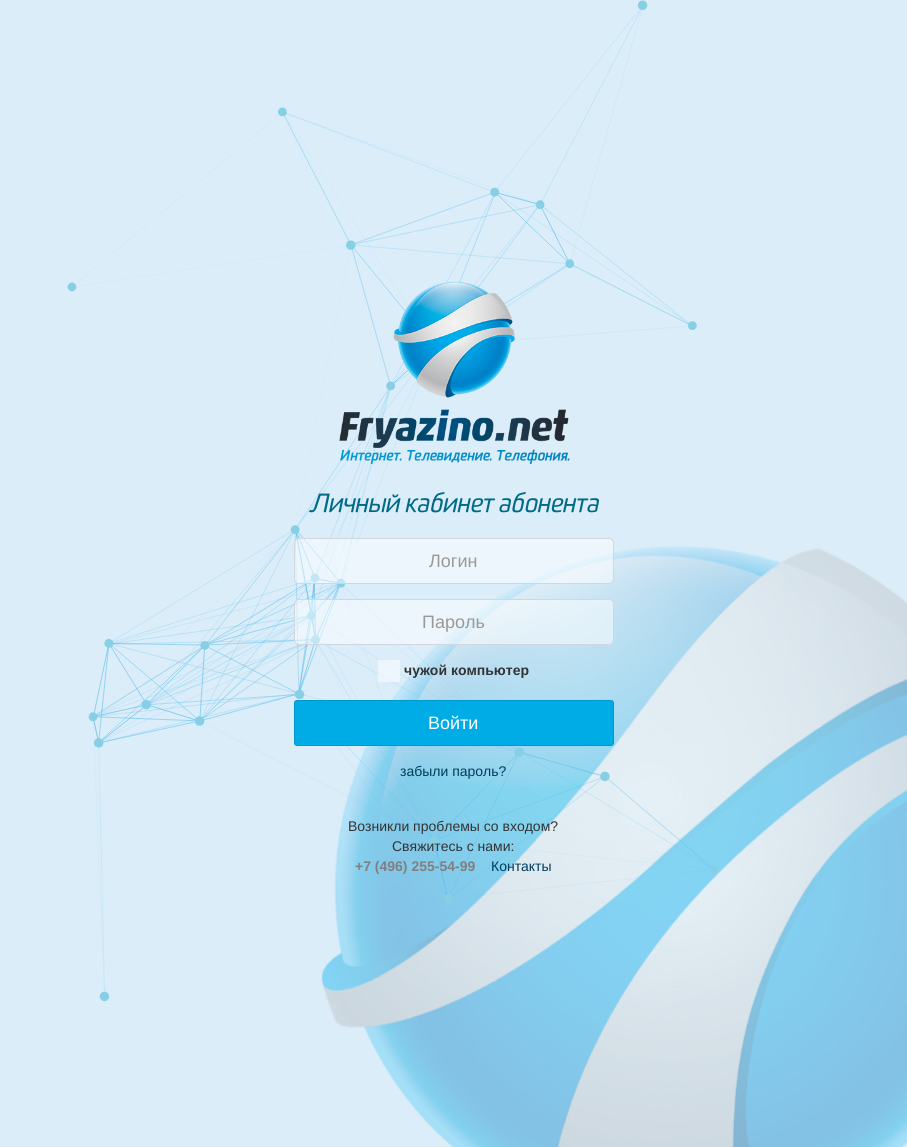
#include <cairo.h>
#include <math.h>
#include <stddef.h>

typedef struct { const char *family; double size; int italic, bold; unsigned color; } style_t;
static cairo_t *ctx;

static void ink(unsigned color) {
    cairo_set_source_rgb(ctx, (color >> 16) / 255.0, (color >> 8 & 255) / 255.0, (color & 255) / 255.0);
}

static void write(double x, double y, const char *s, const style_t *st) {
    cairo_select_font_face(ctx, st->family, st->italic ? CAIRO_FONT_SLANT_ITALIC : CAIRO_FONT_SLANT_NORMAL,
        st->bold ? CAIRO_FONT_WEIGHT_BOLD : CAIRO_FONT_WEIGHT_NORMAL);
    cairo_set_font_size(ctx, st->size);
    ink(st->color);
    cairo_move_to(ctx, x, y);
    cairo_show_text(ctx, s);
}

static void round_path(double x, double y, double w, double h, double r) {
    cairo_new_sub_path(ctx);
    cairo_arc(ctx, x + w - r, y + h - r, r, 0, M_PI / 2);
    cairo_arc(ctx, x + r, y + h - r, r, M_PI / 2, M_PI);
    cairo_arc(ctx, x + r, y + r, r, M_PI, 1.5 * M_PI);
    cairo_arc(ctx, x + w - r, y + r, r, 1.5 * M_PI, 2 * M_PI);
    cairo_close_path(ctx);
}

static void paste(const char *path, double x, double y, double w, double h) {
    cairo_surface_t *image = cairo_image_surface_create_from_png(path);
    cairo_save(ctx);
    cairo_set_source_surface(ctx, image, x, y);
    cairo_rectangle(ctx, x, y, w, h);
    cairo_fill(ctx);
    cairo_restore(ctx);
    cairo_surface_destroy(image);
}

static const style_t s1 = {"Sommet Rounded", 30.75, 1, 0, 0x006a88};
static const style_t s2 = {"Liberation Sans", 18, 0, 0, 0x999999};
static const style_t s3 = {"Liberation Sans", 14, 0, 1, 0x333333};
static const style_t s4 = {"Liberation Sans", 18, 0, 0, 0xffffff};
static const style_t s5 = {"Liberation Sans", 14, 0, 0, 0x003c5c};
static const style_t s6 = {"Liberation Sans", 14, 0, 0, 0x333333};
static const style_t s7 = {"Liberation Sans", 14, 0, 1, 0x808080};

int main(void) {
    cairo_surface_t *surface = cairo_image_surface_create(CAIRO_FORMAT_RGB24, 907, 1147);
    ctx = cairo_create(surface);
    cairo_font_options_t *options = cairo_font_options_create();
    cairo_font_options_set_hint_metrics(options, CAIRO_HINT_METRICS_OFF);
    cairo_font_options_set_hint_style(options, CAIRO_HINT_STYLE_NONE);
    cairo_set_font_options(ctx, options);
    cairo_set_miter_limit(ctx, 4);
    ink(0xdbedf9);
    cairo_paint(ctx);
    paste("pic3.png", 321, 546, 586, 601);
    paste("pic1.png", 67, 0, 652, 1002);
    paste("pic2.png", 339, 272, 231, 192);
    write(308, 512, "Личный кабинет абонента", &s1);
    cairo_set_source_rgba(ctx, 1, 1, 1, 0.5);
    round_path(294.5, 538.5, 319, 45, 4.5);
    cairo_fill_preserve(ctx);
    ink(0xd2d6de);
    cairo_set_line_width(ctx, 1);
    cairo_stroke(ctx);
    write(429, 567, "Логин", &s2);
    cairo_set_source_rgba(ctx, 1, 1, 1, 0.5);
    round_path(294.5, 599.5, 319, 45, 4.5);
    cairo_fill_preserve(ctx);
    ink(0xd2d6de);
    cairo_stroke(ctx);
    write(422, 628, "Пароль", &s2);
    cairo_set_source_rgba(ctx, 1, 1, 1, 0.5);
    cairo_rectangle(ctx, 378, 660, 22, 22);
    cairo_fill(ctx);
    write(404, 675, "чужой компьютер", &s3);
    ink(0x00ace6);
    round_path(294.5, 700.5, 319, 45, 2.5);
    cairo_fill_preserve(ctx);
    ink(0x0099cd);
    cairo_stroke(ctx);
    write(428, 729, "Войти", &s4);
    write(400, 776, "забыли пароль?", &s5);
    write(348, 831, "Возникли проблемы со входом?", &s6);
    write(392, 851, "Свяжитесь с нами:", &s6);
    write(355, 871, "+7 (496) 255-54-99", &s7);
    write(491, 871, "Контакты", &s5);
    cairo_surface_write_to_png(surface, "screenshot.png");
    cairo_font_options_destroy(options);
    cairo_destroy(ctx);
    cairo_surface_destroy(surface);
    return 0;
}
